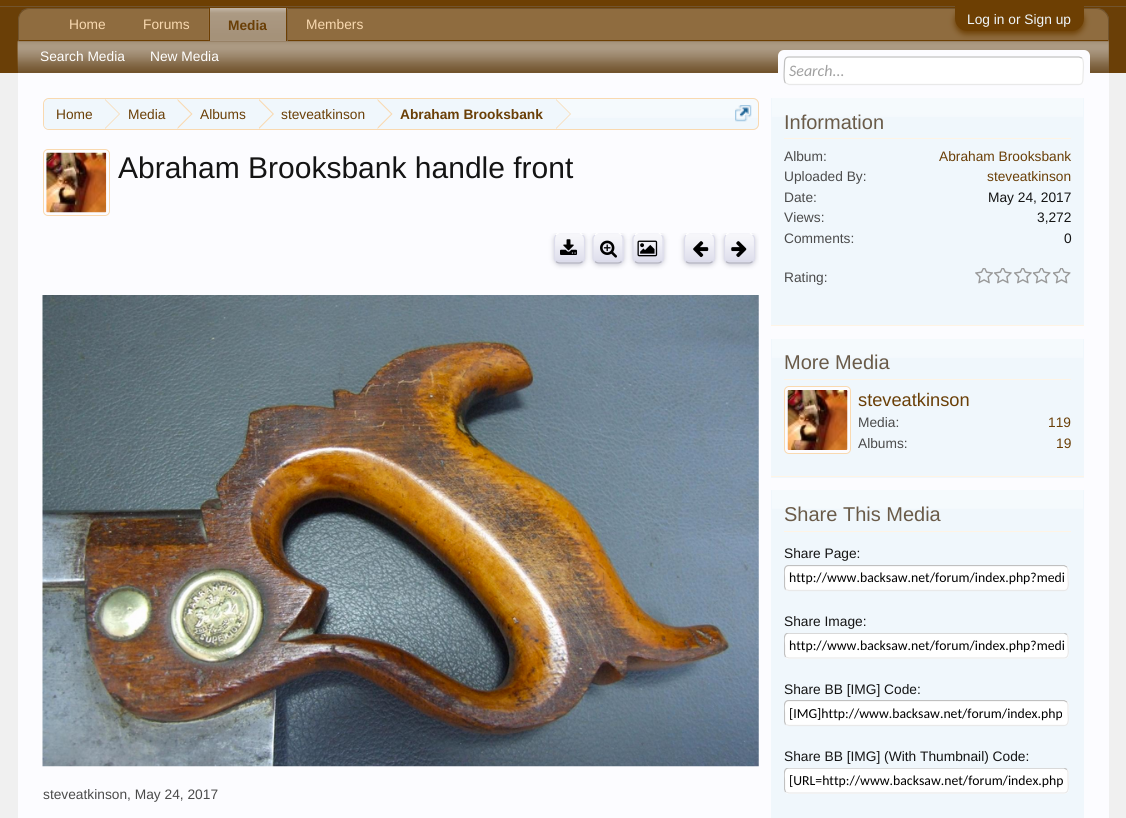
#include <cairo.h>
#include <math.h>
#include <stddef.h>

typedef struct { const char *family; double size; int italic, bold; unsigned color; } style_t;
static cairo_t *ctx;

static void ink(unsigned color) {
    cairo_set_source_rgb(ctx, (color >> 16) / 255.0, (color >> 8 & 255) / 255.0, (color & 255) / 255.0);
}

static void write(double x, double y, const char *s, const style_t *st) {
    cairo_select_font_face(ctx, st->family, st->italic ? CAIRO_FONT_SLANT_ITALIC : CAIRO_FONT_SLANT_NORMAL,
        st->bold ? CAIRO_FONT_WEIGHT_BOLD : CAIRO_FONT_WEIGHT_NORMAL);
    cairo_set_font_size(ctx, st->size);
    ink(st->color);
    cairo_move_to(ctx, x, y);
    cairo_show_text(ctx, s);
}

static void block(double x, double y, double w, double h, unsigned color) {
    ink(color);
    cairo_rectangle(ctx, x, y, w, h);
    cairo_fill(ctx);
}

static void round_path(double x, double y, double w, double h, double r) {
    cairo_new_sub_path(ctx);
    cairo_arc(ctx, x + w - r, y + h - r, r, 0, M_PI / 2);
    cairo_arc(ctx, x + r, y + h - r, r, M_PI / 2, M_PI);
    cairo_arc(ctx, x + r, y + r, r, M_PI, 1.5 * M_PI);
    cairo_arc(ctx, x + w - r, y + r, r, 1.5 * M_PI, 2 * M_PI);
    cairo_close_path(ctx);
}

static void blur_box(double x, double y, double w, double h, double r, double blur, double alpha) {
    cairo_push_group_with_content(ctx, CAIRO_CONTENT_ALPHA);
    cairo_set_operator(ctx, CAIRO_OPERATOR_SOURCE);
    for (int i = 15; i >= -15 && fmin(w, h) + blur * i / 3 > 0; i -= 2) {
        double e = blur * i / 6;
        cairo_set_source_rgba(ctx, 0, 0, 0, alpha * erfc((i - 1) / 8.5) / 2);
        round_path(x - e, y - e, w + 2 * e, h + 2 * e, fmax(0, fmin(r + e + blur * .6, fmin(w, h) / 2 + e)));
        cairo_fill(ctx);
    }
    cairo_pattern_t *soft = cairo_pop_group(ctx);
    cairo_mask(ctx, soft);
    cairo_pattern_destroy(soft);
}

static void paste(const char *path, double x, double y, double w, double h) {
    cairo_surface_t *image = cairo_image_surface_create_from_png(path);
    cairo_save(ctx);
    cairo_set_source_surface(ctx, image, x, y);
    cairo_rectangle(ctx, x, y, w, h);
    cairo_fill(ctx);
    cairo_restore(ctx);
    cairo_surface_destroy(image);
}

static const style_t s1 = {"Liberation Sans", 13.75, 0, 0, 0xf0f7fc};
static const style_t s2 = {"Liberation Sans", 13.75, 0, 0, 0xf9d9b0};
static const style_t s3 = {"Liberation Sans", 13.75, 0, 1, 0x6a3f07};
static const style_t s4 = {"Liberation Sans", 13.75, 0, 0, 0xffffff};
static const style_t s5 = {"Carlito", 16, 1, 0, 0xa0a0a0};
static const style_t s6 = {"Liberation Sans", 13.75, 0, 0, 0x6a3f07};
static const style_t s7 = {"Liberation Sans", 30, 0, 0, 0x141414};
static const style_t s8 = {"Liberation Sans", 13.75, 0, 0, 0x4b4b4b};
static const style_t s9 = {"Liberation Sans", 20, 0, 0, 0x6a5b49};
static const style_t s10 = {"Liberation Sans", 13.75, 0, 0, 0x141414};
static const style_t s11 = {"Liberation Sans", 18.25, 0, 0, 0x6a3f07};
static const style_t s12 = {"Carlito", 13.75, 0, 0, 0x000000};

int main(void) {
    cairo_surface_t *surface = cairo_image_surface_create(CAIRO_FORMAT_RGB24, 1126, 818);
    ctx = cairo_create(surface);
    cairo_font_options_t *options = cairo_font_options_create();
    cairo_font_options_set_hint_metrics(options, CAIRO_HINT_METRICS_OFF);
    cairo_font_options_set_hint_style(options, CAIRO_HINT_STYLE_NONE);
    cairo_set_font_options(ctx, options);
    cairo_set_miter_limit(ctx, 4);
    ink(0xf0f0f0);
    cairo_paint(ctx);
    block(0, 0, 1126, 8, 0x6d3f03);
    block(0, 6, 1126, 1, 0x72542e);
    block(0, 8, 1126, 65, 0x6a3f07);
    ink(0x8f6c3f);
    cairo_new_path(ctx);
    cairo_move_to(ctx, 31, 8);
    cairo_line_to(ctx, 1096, 8);
    cairo_curve_to(ctx, 1103, 8, 1109, 14, 1109, 21);
    cairo_line_to(ctx, 1109, 41);
    cairo_line_to(ctx, 18, 41);
    cairo_line_to(ctx, 18, 21);
    cairo_curve_to(ctx, 18, 14, 24, 8, 31, 8);
    cairo_close_path(ctx);
    cairo_fill(ctx);
    ink(0x72542e);
    cairo_new_path(ctx);
    cairo_move_to(ctx, 30, 8);
    cairo_curve_to(ctx, 26, 8, 24, 9, 21, 11);
    cairo_line_to(ctx, 22, 12);
    cairo_curve_to(ctx, 24, 10, 27, 9, 30, 9);
    cairo_line_to(ctx, 1096, 9);
    cairo_curve_to(ctx, 1099, 9, 1102, 10, 1104, 12);
    cairo_line_to(ctx, 1105, 11);
    cairo_curve_to(ctx, 1103, 9, 1099, 8, 1096, 8);
    cairo_close_path(ctx);
    cairo_fill(ctx);
    cairo_new_path(ctx);
    cairo_move_to(ctx, 1105, 11.5);
    cairo_curve_to(ctx, 1107, 13, 1108, 15, 1109, 17.5);
    cairo_line_to(ctx, 1109, 41);
    cairo_line_to(ctx, 1107.5, 40);
    cairo_line_to(ctx, 1108, 40);
    cairo_line_to(ctx, 1108, 20);
    cairo_curve_to(ctx, 1108, 17, 1106.5, 14, 1104, 12);
    cairo_close_path(ctx);
    cairo_fill(ctx);
    ink(0x6d3f03);
    cairo_new_path(ctx);
    cairo_move_to(ctx, 1108, 41);
    cairo_line_to(ctx, 18, 41);
    cairo_line_to(ctx, 19, 40);
    cairo_line_to(ctx, 1108, 40);
    cairo_close_path(ctx);
    cairo_fill(ctx);
    block(18, 41, 1091, 32, 0x72542e);
    paste("pic2.png", 17, 41, 1092, 30);
    ink(0x6d3f03);
    blur_box(955, 9, 129, 25, 12.5, 3, 1);
    ink(0x6d3f03);
    cairo_new_path(ctx);
    cairo_move_to(ctx, 955, 6);
    cairo_line_to(ctx, 1084, 6);
    cairo_line_to(ctx, 1084, 18.5);
    cairo_curve_to(ctx, 1084, 25.5, 1078.5, 31, 1071.5, 31);
    cairo_line_to(ctx, 967.5, 31);
    cairo_curve_to(ctx, 960.5, 31, 955, 25.5, 955, 18.5);
    cairo_close_path(ctx);
    cairo_fill(ctx);
    write(967, 24, "Log in or Sign up", &s1);
    ink(0x72542e);
    cairo_new_path(ctx);
    cairo_move_to(ctx, 21.5, 11.5);
    cairo_curve_to(ctx, 19, 13.5, 18, 16.5, 18, 20);
    cairo_line_to(ctx, 18, 41);
    cairo_line_to(ctx, 19, 40);
    cairo_line_to(ctx, 19, 20);
    cairo_curve_to(ctx, 19, 17, 20, 14, 22, 12);
    cairo_close_path(ctx);
    cairo_fill(ctx);
    write(69, 29, "Home", &s2);
    write(143, 29, "Forums", &s2);
    write(306, 29, "Members", &s2);
    block(210, 9, 78, 32, 0x72542e);
    paste("pic1.png", 208, 8, 80, 33);
    block(286, 8, 1, 33, 0x6d3f03);
    block(209, 8, 1, 33, 0x6d3f03);
    write(228, 30, "Media", &s3);
    write(40, 61, "Search Media", &s4);
    write(150, 61, "New Media", &s4);
    block(18, 73, 1091, 745, 0xfcfcff);
    round_path(778, 50, 312, 35, 6);
    cairo_fill(ctx);
    ink(0xffffff);
    round_path(784, 56, 300, 29, 5);
    cairo_fill(ctx);
    cairo_new_path(ctx);
    cairo_move_to(ctx, 1082, 58);
    cairo_curve_to(ctx, 1084.5, 61, 1083, 73, 1083, 77);
    cairo_curve_to(ctx, 1083, 80, 1083, 84.5, 1079, 84.5);
    cairo_line_to(ctx, 789, 84.5);
    cairo_line_to(ctx, 785.5, 83);
    ink(0xe9e9e9);
    cairo_set_line_width(ctx, 1.2);
    cairo_stroke(ctx);
    cairo_new_path(ctx);
    cairo_move_to(ctx, 785.5, 83);
    cairo_curve_to(ctx, 783, 80.5, 784.5, 68, 784.5, 64.5);
    cairo_curve_to(ctx, 784.5, 61, 784.5, 57, 789, 57);
    cairo_line_to(ctx, 1079, 57);
    cairo_line_to(ctx, 1082, 58);
    ink(0xc0c0c0);
    cairo_stroke(ctx);
    write(789, 76, "Search...", &s5);
    ink(0xf0f7fc);
    round_path(43, 98, 716, 32, 6);
    cairo_fill(ctx);
    paste("pic3.png", 43, 99, 715, 19);
    round_path(43.5, 98.5, 715, 31, 5.5);
    ink(0xf9d9b0);
    cairo_set_line_width(ctx, 1);
    cairo_stroke(ctx);
    cairo_save(ctx);
    round_path(44, 99, 714, 30, 5);
    cairo_clip(ctx);
    ink(0xf0f7fc);
    cairo_new_path(ctx);
    cairo_move_to(ctx, 50, 99);
    cairo_line_to(ctx, 105, 99);
    cairo_line_to(ctx, 105, 130);
    cairo_line_to(ctx, 50, 130);
    cairo_curve_to(ctx, 46.5, 130, 44, 127.5, 44, 124);
    cairo_line_to(ctx, 44, 105);
    cairo_curve_to(ctx, 44, 101.5, 46.5, 99, 50, 99);
    cairo_close_path(ctx);
    cairo_fill(ctx);
    cairo_restore(ctx);
    write(56, 119, "Home", &s6);
    block(105, 99, 451, 19, 0xf0f7fc);
    ink(0xf9d9b0);
    cairo_new_path(ctx);
    cairo_move_to(ctx, 105, 129);
    cairo_line_to(ctx, 105, 99);
    cairo_line_to(ctx, 120, 114);
    cairo_close_path(ctx);
    cairo_fill(ctx);
    ink(0xf0f7fc);
    cairo_new_path(ctx);
    cairo_move_to(ctx, 104, 129);
    cairo_line_to(ctx, 104, 99);
    cairo_line_to(ctx, 119, 114);
    cairo_close_path(ctx);
    cairo_fill(ctx);
    write(128, 119, "Media", &s6);
    ink(0xf9d9b0);
    cairo_new_path(ctx);
    cairo_move_to(ctx, 177.5, 129);
    cairo_line_to(ctx, 177.5, 99);
    cairo_line_to(ctx, 192.5, 114);
    cairo_close_path(ctx);
    cairo_fill(ctx);
    ink(0xf0f7fc);
    cairo_new_path(ctx);
    cairo_move_to(ctx, 176, 129);
    cairo_line_to(ctx, 176, 99);
    cairo_line_to(ctx, 191, 114);
    cairo_close_path(ctx);
    cairo_fill(ctx);
    write(200, 119, "Albums", &s6);
    ink(0xf9d9b0);
    cairo_new_path(ctx);
    cairo_move_to(ctx, 259, 129);
    cairo_line_to(ctx, 259, 99);
    cairo_line_to(ctx, 274, 114);
    cairo_close_path(ctx);
    cairo_fill(ctx);
    ink(0xf0f7fc);
    cairo_new_path(ctx);
    cairo_move_to(ctx, 257.5, 129);
    cairo_line_to(ctx, 257.5, 99);
    cairo_line_to(ctx, 272.5, 114);
    cairo_close_path(ctx);
    cairo_fill(ctx);
    write(281, 119, "steveatkinson", &s6);
    ink(0xf9d9b0);
    cairo_new_path(ctx);
    cairo_move_to(ctx, 377.5, 129);
    cairo_line_to(ctx, 377.5, 99);
    cairo_line_to(ctx, 392.5, 114);
    cairo_close_path(ctx);
    cairo_fill(ctx);
    ink(0xf0f7fc);
    cairo_new_path(ctx);
    cairo_move_to(ctx, 376, 129);
    cairo_line_to(ctx, 376, 99);
    cairo_line_to(ctx, 391, 114);
    cairo_close_path(ctx);
    cairo_fill(ctx);
    write(400, 119, "Abraham Brooksbank", &s3);
    ink(0xf9d9b0);
    cairo_new_path(ctx);
    cairo_move_to(ctx, 556, 129);
    cairo_line_to(ctx, 556, 99);
    cairo_line_to(ctx, 571, 114);
    cairo_close_path(ctx);
    cairo_fill(ctx);
    ink(0xf0f7fc);
    cairo_new_path(ctx);
    cairo_move_to(ctx, 555, 129);
    cairo_line_to(ctx, 555, 99);
    cairo_line_to(ctx, 570, 114);
    cairo_close_path(ctx);
    cairo_fill(ctx);
    paste("pic4.png", 735, 105, 17, 17);
    round_path(43.5, 149.5, 66, 66, 4.5);
    ink(0xf9d9b0);
    cairo_stroke(ctx);
    paste("pic5.png", 46, 152, 61, 61);
    write(118, 178, "Abraham Brooksbank handle front", &s7);
    cairo_save(ctx);
    cairo_rectangle(ctx, 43, 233, 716, 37);
    cairo_clip(ctx);
    ink(0xc8c8d2);
    blur_box(554, 234, 31, 31, 6, 2.5, 1);
    cairo_restore(ctx);
    ink(0xdcdceb);
    round_path(554, 233, 31, 31, 6);
    cairo_fill(ctx);
    paste("pic6.png", 554, 233, 31, 27);
    cairo_save(ctx);
    cairo_rectangle(ctx, 43, 233, 716, 37);
    cairo_clip(ctx);
    cairo_new_path(ctx);
    cairo_move_to(ctx, 556, 235);
    cairo_curve_to(ctx, 557, 233.5, 558.5, 233, 560, 233);
    cairo_line_to(ctx, 579, 233);
    cairo_curve_to(ctx, 580, 233, 581.5, 233.5, 582.5, 235);
    ink(0xffffff);
    cairo_set_line_width(ctx, 1.2);
    cairo_stroke(ctx);
    cairo_restore(ctx);
    cairo_new_path(ctx);
    cairo_move_to(ctx, 582.5, 235);
    cairo_curve_to(ctx, 584, 236, 584.5, 237.5, 584.5, 239);
    cairo_line_to(ctx, 584.5, 257.5);
    cairo_curve_to(ctx, 584.5, 259, 584, 260.5, 582.5, 261.5);
    ink(0xddddeb);
    cairo_set_line_width(ctx, 1.2);
    cairo_stroke(ctx);
    cairo_new_path(ctx);
    cairo_move_to(ctx, 582.5, 261.5);
    cairo_curve_to(ctx, 581.5, 262.5, 580, 263, 579, 263);
    cairo_line_to(ctx, 560, 263);
    cairo_curve_to(ctx, 558.5, 263, 557, 262.5, 556, 261.5);
    ink(0xb3b3bd);
    cairo_stroke(ctx);
    cairo_new_path(ctx);
    cairo_move_to(ctx, 556, 261.5);
    cairo_curve_to(ctx, 555, 260.5, 554.5, 259, 554.5, 257.5);
    cairo_line_to(ctx, 554.5, 239);
    cairo_curve_to(ctx, 554.5, 237.5, 555, 236, 556, 235);
    ink(0xddddeb);
    cairo_stroke(ctx);
    paste("pic7.png", 560, 239, 18, 16);
    cairo_save(ctx);
    cairo_rectangle(ctx, 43, 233, 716, 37);
    cairo_clip(ctx);
    ink(0xc8c8d2);
    blur_box(593, 234, 31, 31, 6, 2.5, 1);
    cairo_restore(ctx);
    ink(0xdcdceb);
    round_path(593, 233, 31, 31, 6);
    cairo_fill(ctx);
    paste("pic8.png", 593, 233, 31, 27);
    cairo_save(ctx);
    cairo_rectangle(ctx, 43, 233, 716, 37);
    cairo_clip(ctx);
    cairo_new_path(ctx);
    cairo_move_to(ctx, 595, 235);
    cairo_curve_to(ctx, 596, 233.5, 597.5, 233, 599, 233);
    cairo_line_to(ctx, 617.5, 233);
    cairo_curve_to(ctx, 619, 233, 620.5, 233.5, 621.5, 235);
    ink(0xffffff);
    cairo_stroke(ctx);
    cairo_restore(ctx);
    cairo_new_path(ctx);
    cairo_move_to(ctx, 621.5, 235);
    cairo_curve_to(ctx, 622.5, 236, 623, 237.5, 623, 239);
    cairo_line_to(ctx, 623, 257.5);
    cairo_curve_to(ctx, 623, 259, 622.5, 260.5, 621.5, 261.5);
    ink(0xddddeb);
    cairo_stroke(ctx);
    cairo_new_path(ctx);
    cairo_move_to(ctx, 621.5, 261.5);
    cairo_curve_to(ctx, 620.5, 262.5, 619, 263, 617.5, 263);
    cairo_line_to(ctx, 599, 263);
    cairo_curve_to(ctx, 597.5, 263, 596, 262.5, 595, 261.5);
    ink(0xb3b3bd);
    cairo_stroke(ctx);
    cairo_new_path(ctx);
    cairo_move_to(ctx, 595, 261.5);
    cairo_curve_to(ctx, 593.5, 260.5, 593, 259, 593, 257.5);
    cairo_line_to(ctx, 593, 239);
    cairo_curve_to(ctx, 593, 237.5, 593.5, 236, 595, 235);
    ink(0xddddeb);
    cairo_stroke(ctx);
    paste("pic9.png", 600, 240, 17, 18);
    cairo_save(ctx);
    cairo_rectangle(ctx, 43, 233, 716, 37);
    cairo_clip(ctx);
    ink(0xc8c8d2);
    blur_box(633, 234, 31, 31, 6, 2.5, 1);
    cairo_restore(ctx);
    ink(0xdcdceb);
    round_path(633, 233, 31, 31, 6);
    cairo_fill(ctx);
    paste("pic8.png", 633, 233, 31, 27);
    cairo_save(ctx);
    cairo_rectangle(ctx, 43, 233, 716, 37);
    cairo_clip(ctx);
    cairo_new_path(ctx);
    cairo_move_to(ctx, 635, 235);
    cairo_curve_to(ctx, 636, 233.5, 637.5, 233, 639, 233);
    cairo_line_to(ctx, 657.5, 233);
    cairo_curve_to(ctx, 659, 233, 660.5, 233.5, 661.5, 235);
    ink(0xffffff);
    cairo_stroke(ctx);
    cairo_restore(ctx);
    cairo_new_path(ctx);
    cairo_move_to(ctx, 661.5, 235);
    cairo_curve_to(ctx, 662.5, 236, 663, 237.5, 663, 239);
    cairo_line_to(ctx, 663, 257.5);
    cairo_curve_to(ctx, 663, 259, 662.5, 260.5, 661.5, 261.5);
    ink(0xddddeb);
    cairo_stroke(ctx);
    cairo_new_path(ctx);
    cairo_move_to(ctx, 661.5, 261.5);
    cairo_curve_to(ctx, 660.5, 262.5, 659, 263, 657.5, 263);
    cairo_line_to(ctx, 639, 263);
    cairo_curve_to(ctx, 637.5, 263, 636, 262.5, 635, 261.5);
    ink(0xb3b3bd);
    cairo_stroke(ctx);
    cairo_new_path(ctx);
    cairo_move_to(ctx, 635, 261.5);
    cairo_curve_to(ctx, 633.5, 260.5, 633, 259, 633, 257.5);
    cairo_line_to(ctx, 633, 239);
    cairo_curve_to(ctx, 633, 237.5, 633.5, 236, 635, 235);
    ink(0xddddeb);
    cairo_stroke(ctx);
    paste("pic10.png", 637, 240, 21, 17);
    cairo_save(ctx);
    cairo_rectangle(ctx, 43, 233, 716, 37);
    cairo_clip(ctx);
    ink(0xc8c8d2);
    blur_box(684, 234, 31, 31, 6, 2.5, 1);
    cairo_restore(ctx);
    ink(0xdcdceb);
    round_path(684, 233, 31, 31, 6);
    cairo_fill(ctx);
    paste("pic6.png", 684, 233, 31, 27);
    cairo_save(ctx);
    cairo_rectangle(ctx, 43, 233, 716, 37);
    cairo_clip(ctx);
    cairo_new_path(ctx);
    cairo_move_to(ctx, 686, 235);
    cairo_curve_to(ctx, 687, 233.5, 688.5, 233, 690, 233);
    cairo_line_to(ctx, 709, 233);
    cairo_curve_to(ctx, 710, 233, 711.5, 233.5, 712.5, 235);
    ink(0xffffff);
    cairo_stroke(ctx);
    cairo_restore(ctx);
    cairo_new_path(ctx);
    cairo_move_to(ctx, 712.5, 235);
    cairo_curve_to(ctx, 714, 236, 714.5, 237.5, 714.5, 239);
    cairo_line_to(ctx, 714.5, 257.5);
    cairo_curve_to(ctx, 714.5, 259, 714, 260.5, 712.5, 261.5);
    ink(0xddddeb);
    cairo_stroke(ctx);
    cairo_new_path(ctx);
    cairo_move_to(ctx, 712.5, 261.5);
    cairo_curve_to(ctx, 711.5, 262.5, 710, 263, 709, 263);
    cairo_line_to(ctx, 690, 263);
    cairo_curve_to(ctx, 688.5, 263, 687, 262.5, 686, 261.5);
    ink(0xb3b3bd);
    cairo_stroke(ctx);
    cairo_new_path(ctx);
    cairo_move_to(ctx, 686, 261.5);
    cairo_curve_to(ctx, 685, 260.5, 684.5, 259, 684.5, 257.5);
    cairo_line_to(ctx, 684.5, 239);
    cairo_curve_to(ctx, 684.5, 237.5, 685, 236, 686, 235);
    ink(0xddddeb);
    cairo_stroke(ctx);
    paste("pic11.png", 693, 241, 16, 17);
    cairo_save(ctx);
    cairo_rectangle(ctx, 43, 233, 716, 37);
    cairo_clip(ctx);
    ink(0xc8c8d2);
    blur_box(724, 234, 31, 31, 6, 2.5, 1);
    cairo_restore(ctx);
    ink(0xdcdceb);
    round_path(724, 233, 31, 31, 6);
    cairo_fill(ctx);
    paste("pic6.png", 724, 233, 31, 27);
    cairo_save(ctx);
    cairo_rectangle(ctx, 43, 233, 716, 37);
    cairo_clip(ctx);
    cairo_new_path(ctx);
    cairo_move_to(ctx, 726, 235);
    cairo_curve_to(ctx, 727, 233.5, 728.5, 233, 730, 233);
    cairo_line_to(ctx, 749, 233);
    cairo_curve_to(ctx, 750, 233, 751.5, 233.5, 752.5, 235);
    ink(0xffffff);
    cairo_stroke(ctx);
    cairo_restore(ctx);
    cairo_new_path(ctx);
    cairo_move_to(ctx, 752.5, 235);
    cairo_curve_to(ctx, 754, 236, 754.5, 237.5, 754.5, 239);
    cairo_line_to(ctx, 754.5, 257.5);
    cairo_curve_to(ctx, 754.5, 259, 754, 260.5, 752.5, 261.5);
    ink(0xddddeb);
    cairo_stroke(ctx);
    cairo_new_path(ctx);
    cairo_move_to(ctx, 752.5, 261.5);
    cairo_curve_to(ctx, 751.5, 262.5, 750, 263, 749, 263);
    cairo_line_to(ctx, 730, 263);
    cairo_curve_to(ctx, 728.5, 263, 727, 262.5, 726, 261.5);
    ink(0xb3b3bd);
    cairo_stroke(ctx);
    cairo_new_path(ctx);
    cairo_move_to(ctx, 726, 261.5);
    cairo_curve_to(ctx, 725, 260.5, 724.5, 259, 724.5, 257.5);
    cairo_line_to(ctx, 724.5, 239);
    cairo_curve_to(ctx, 724.5, 237.5, 725, 236, 726, 235);
    ink(0xddddeb);
    cairo_stroke(ctx);
    paste("pic12.png", 731, 241, 16, 17);
    paste("pic13.png", 42, 295, 717, 472);
    write(43, 799, "steveatkinson, May 24, 2017", &s8);
    block(771, 98, 313, 227, 0xf0f7fc);
    paste("pic14.png", 772, 98, 311, 19);
    block(771, 325, 313, 1, 0xfff4e5);
    block(784, 138, 287, 1, 0xfff4e5);
    write(784, 129, "Information", &s9);
    write(784, 161, "Album:", &s8);
    write(939, 161, "Abraham Brooksbank", &s6);
    write(784, 181, "Uploaded By:", &s8);
    write(987, 181, "steveatkinson", &s6);
    write(784, 202, "Date:", &s8);
    write(988, 202, "May 24, 2017", &s10);
    write(784, 222, "Views:", &s8);
    write(1037, 222, "3,272", &s10);
    write(784, 243, "Comments:", &s8);
    write(1064, 243, "0", &s10);
    write(784, 282, "Rating:", &s8);
    paste("pic15.png", 975, 268, 18, 16);
    paste("pic16.png", 994, 268, 18, 16);
    paste("pic16.png", 1014, 268, 18, 16);
    paste("pic17.png", 1033, 268, 18, 16);
    paste("pic17.png", 1053, 268, 18, 16);
    block(771, 339, 313, 139, 0xf0f7fc);
    paste("pic18.png", 772, 339, 311, 19);
    block(771, 476, 313, 1, 0xfff4e5);
    block(784, 379, 287, 1, 0xfff4e5);
    write(784, 369, "More Media", &s9);
    ink(0xfcfcff);
    round_path(784.5, 386.5, 66, 67, 4.5);
    cairo_fill_preserve(ctx);
    ink(0xf9d9b0);
    cairo_set_line_width(ctx, 1);
    cairo_stroke(ctx);
    paste("pic19.png", 787, 390, 61, 60);
    write(858, 406, "steveatkinson", &s11);
    write(858, 427, "Media:", &s8);
    write(1048, 427, "119", &s6);
    write(858, 448, "Albums:", &s8);
    write(1056, 448, "19", &s6);
    block(771, 490, 313, 328, 0xf0f7fc);
    paste("pic20.png", 772, 490, 311, 19);
    block(784, 531, 287, 1, 0xfff4e5);
    write(784, 521, "Share This Media", &s9);
    write(784, 558, "Share Page:", &s10);
    ink(0xffffff);
    round_path(784, 565, 285, 26, 5);
    cairo_fill(ctx);
    cairo_new_path(ctx);
    cairo_move_to(ctx, 1067, 567);
    cairo_line_to(ctx, 1068, 569.5);
    cairo_line_to(ctx, 1068, 578);
    cairo_curve_to(ctx, 1068, 581.5, 1070, 590.5, 1064, 590.5);
    cairo_line_to(ctx, 789, 590.5);
    cairo_line_to(ctx, 785.5, 589.5);
    ink(0xe9e9e9);
    cairo_set_line_width(ctx, 1.2);
    cairo_stroke(ctx);
    cairo_save(ctx);
    cairo_rectangle(ctx, 784, 565, 287, 29);
    cairo_clip(ctx);
    cairo_new_path(ctx);
    cairo_move_to(ctx, 785.5, 589.5);
    cairo_line_to(ctx, 784.5, 586.5);
    cairo_line_to(ctx, 784.5, 578);
    cairo_curve_to(ctx, 784.5, 574.5, 782.5, 565.5, 789, 565.5);
    cairo_line_to(ctx, 1064, 565.5);
    cairo_line_to(ctx, 1067, 567);
    ink(0xc0c0c0);
    cairo_stroke(ctx);
    cairo_restore(ctx);
    write(789, 582, "http://www.backsaw.net/forum/index.php?medi", &s12);
    write(784, 626, "Share Image:", &s10);
    ink(0xffffff);
    round_path(784, 633, 285, 26, 5);
    cairo_fill(ctx);
    cairo_new_path(ctx);
    cairo_move_to(ctx, 1067, 634.5);
    cairo_line_to(ctx, 1068, 637);
    cairo_line_to(ctx, 1068, 645.5);
    cairo_curve_to(ctx, 1068, 649, 1070, 658, 1064, 658);
    cairo_line_to(ctx, 789, 658);
    cairo_line_to(ctx, 785.5, 657);
    ink(0xe9e9e9);
    cairo_stroke(ctx);
    cairo_save(ctx);
    cairo_rectangle(ctx, 784, 633, 287, 28);
    cairo_clip(ctx);
    cairo_new_path(ctx);
    cairo_move_to(ctx, 785.5, 657);
    cairo_line_to(ctx, 784.5, 654);
    cairo_line_to(ctx, 784.5, 645.5);
    cairo_curve_to(ctx, 784.5, 642, 782.5, 633, 789, 633);
    cairo_line_to(ctx, 1064, 633);
    cairo_line_to(ctx, 1067, 634.5);
    ink(0xc0c0c0);
    cairo_stroke(ctx);
    cairo_restore(ctx);
    write(789, 650, "http://www.backsaw.net/forum/index.php?medi", &s12);
    write(784, 694, "Share BB [IMG] Code:", &s10);
    ink(0xffffff);
    round_path(784, 700, 285, 26, 5);
    cairo_fill(ctx);
    cairo_new_path(ctx);
    cairo_move_to(ctx, 1067, 702);
    cairo_line_to(ctx, 1068, 704.5);
    cairo_line_to(ctx, 1068, 713);
    cairo_curve_to(ctx, 1068, 716.5, 1070, 725.5, 1064, 725.5);
    cairo_line_to(ctx, 789, 725.5);
    cairo_line_to(ctx, 785.5, 724.5);
    ink(0xe9e9e9);
    cairo_stroke(ctx);
    cairo_save(ctx);
    cairo_rectangle(ctx, 784, 700, 287, 29);
    cairo_clip(ctx);
    cairo_new_path(ctx);
    cairo_move_to(ctx, 785.5, 724.5);
    cairo_line_to(ctx, 784.5, 721.5);
    cairo_line_to(ctx, 784.5, 713);
    cairo_curve_to(ctx, 784.5, 709.5, 782.5, 700.5, 789, 700.5);
    cairo_line_to(ctx, 1064, 700.5);
    cairo_line_to(ctx, 1067, 702);
    ink(0xc0c0c0);
    cairo_stroke(ctx);
    cairo_restore(ctx);
    write(789, 718, "[IMG]http://www.backsaw.net/forum/index.php", &s12);
    write(784, 761, "Share BB [IMG] (With Thumbnail) Code:", &s10);
    ink(0xffffff);
    round_path(784, 768, 285, 26, 5);
    cairo_fill(ctx);
    cairo_new_path(ctx);
    cairo_move_to(ctx, 1067, 769.5);
    cairo_line_to(ctx, 1068, 772);
    cairo_line_to(ctx, 1068, 780.5);
    cairo_curve_to(ctx, 1068, 784, 1070, 793, 1064, 793);
    cairo_line_to(ctx, 789, 793);
    cairo_line_to(ctx, 785.5, 792);
    ink(0xe9e9e9);
    cairo_stroke(ctx);
    cairo_save(ctx);
    cairo_rectangle(ctx, 784, 768, 287, 28);
    cairo_clip(ctx);
    cairo_new_path(ctx);
    cairo_move_to(ctx, 785.5, 792);
    cairo_line_to(ctx, 784.5, 789);
    cairo_line_to(ctx, 784.5, 780.5);
    cairo_curve_to(ctx, 784.5, 777, 782.5, 768, 789, 768);
    cairo_line_to(ctx, 1064, 768);
    cairo_line_to(ctx, 1067, 769.5);
    ink(0xc0c0c0);
    cairo_stroke(ctx);
    cairo_restore(ctx);
    write(789, 785, "[URL=http://www.backsaw.net/forum/index.php", &s12);
    cairo_surface_write_to_png(surface, "screenshot.png");
    cairo_font_options_destroy(options);
    cairo_destroy(ctx);
    cairo_surface_destroy(surface);
    return 0;
}
